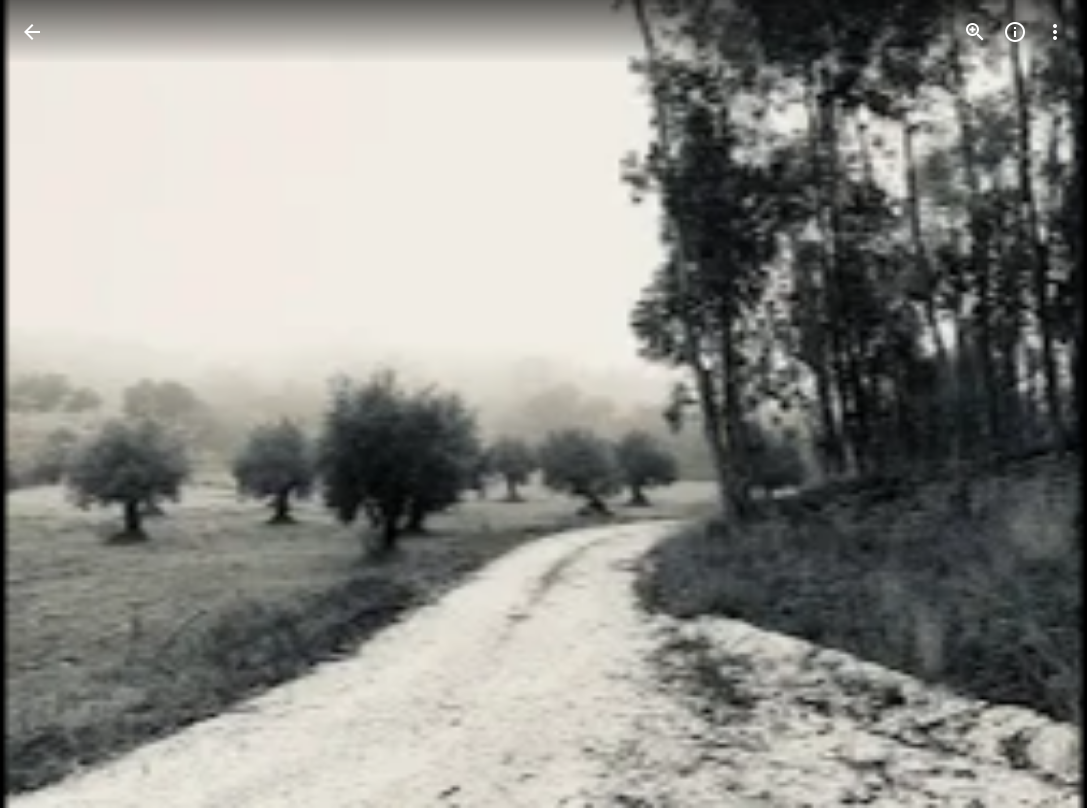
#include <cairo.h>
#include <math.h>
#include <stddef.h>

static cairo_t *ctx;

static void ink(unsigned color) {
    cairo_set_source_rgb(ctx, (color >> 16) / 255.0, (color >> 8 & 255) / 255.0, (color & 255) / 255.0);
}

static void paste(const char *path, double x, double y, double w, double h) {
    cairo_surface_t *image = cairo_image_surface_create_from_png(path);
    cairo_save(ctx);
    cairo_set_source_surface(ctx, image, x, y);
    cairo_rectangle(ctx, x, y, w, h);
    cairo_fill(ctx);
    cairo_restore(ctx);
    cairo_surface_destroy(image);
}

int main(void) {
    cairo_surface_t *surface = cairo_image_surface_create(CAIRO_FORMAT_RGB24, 1087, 808);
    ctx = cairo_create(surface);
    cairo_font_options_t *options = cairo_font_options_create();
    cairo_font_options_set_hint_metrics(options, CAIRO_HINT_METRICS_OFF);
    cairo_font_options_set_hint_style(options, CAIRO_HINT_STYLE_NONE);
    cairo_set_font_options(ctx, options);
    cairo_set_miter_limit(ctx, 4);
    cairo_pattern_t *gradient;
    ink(0x000000);
    cairo_paint(ctx);
    paste("pic1.png", 2, 0, 1083, 808);
    gradient = cairo_pattern_create_linear(544, 0, 544, 64);
    cairo_pattern_add_color_stop_rgba(gradient, 0, 0, 0, 0, 0.6);
    cairo_pattern_add_color_stop_rgba(gradient, 1, 0, 0, 0, 0);
    cairo_set_source(ctx, gradient);
    cairo_pattern_destroy(gradient);
    cairo_rectangle(ctx, 2, 0, 1082, 62);
    cairo_fill(ctx);
    paste("pic2.png", 24, 24, 16, 16);
    paste("pic3.png", 966, 23, 18, 18);
    paste("pic4.png", 1005, 22, 20, 20);
    paste("pic5.png", 1053, 24, 4, 16);
    cairo_surface_write_to_png(surface, "screenshot.png");
    cairo_font_options_destroy(options);
    cairo_destroy(ctx);
    cairo_surface_destroy(surface);
    return 0;
}
